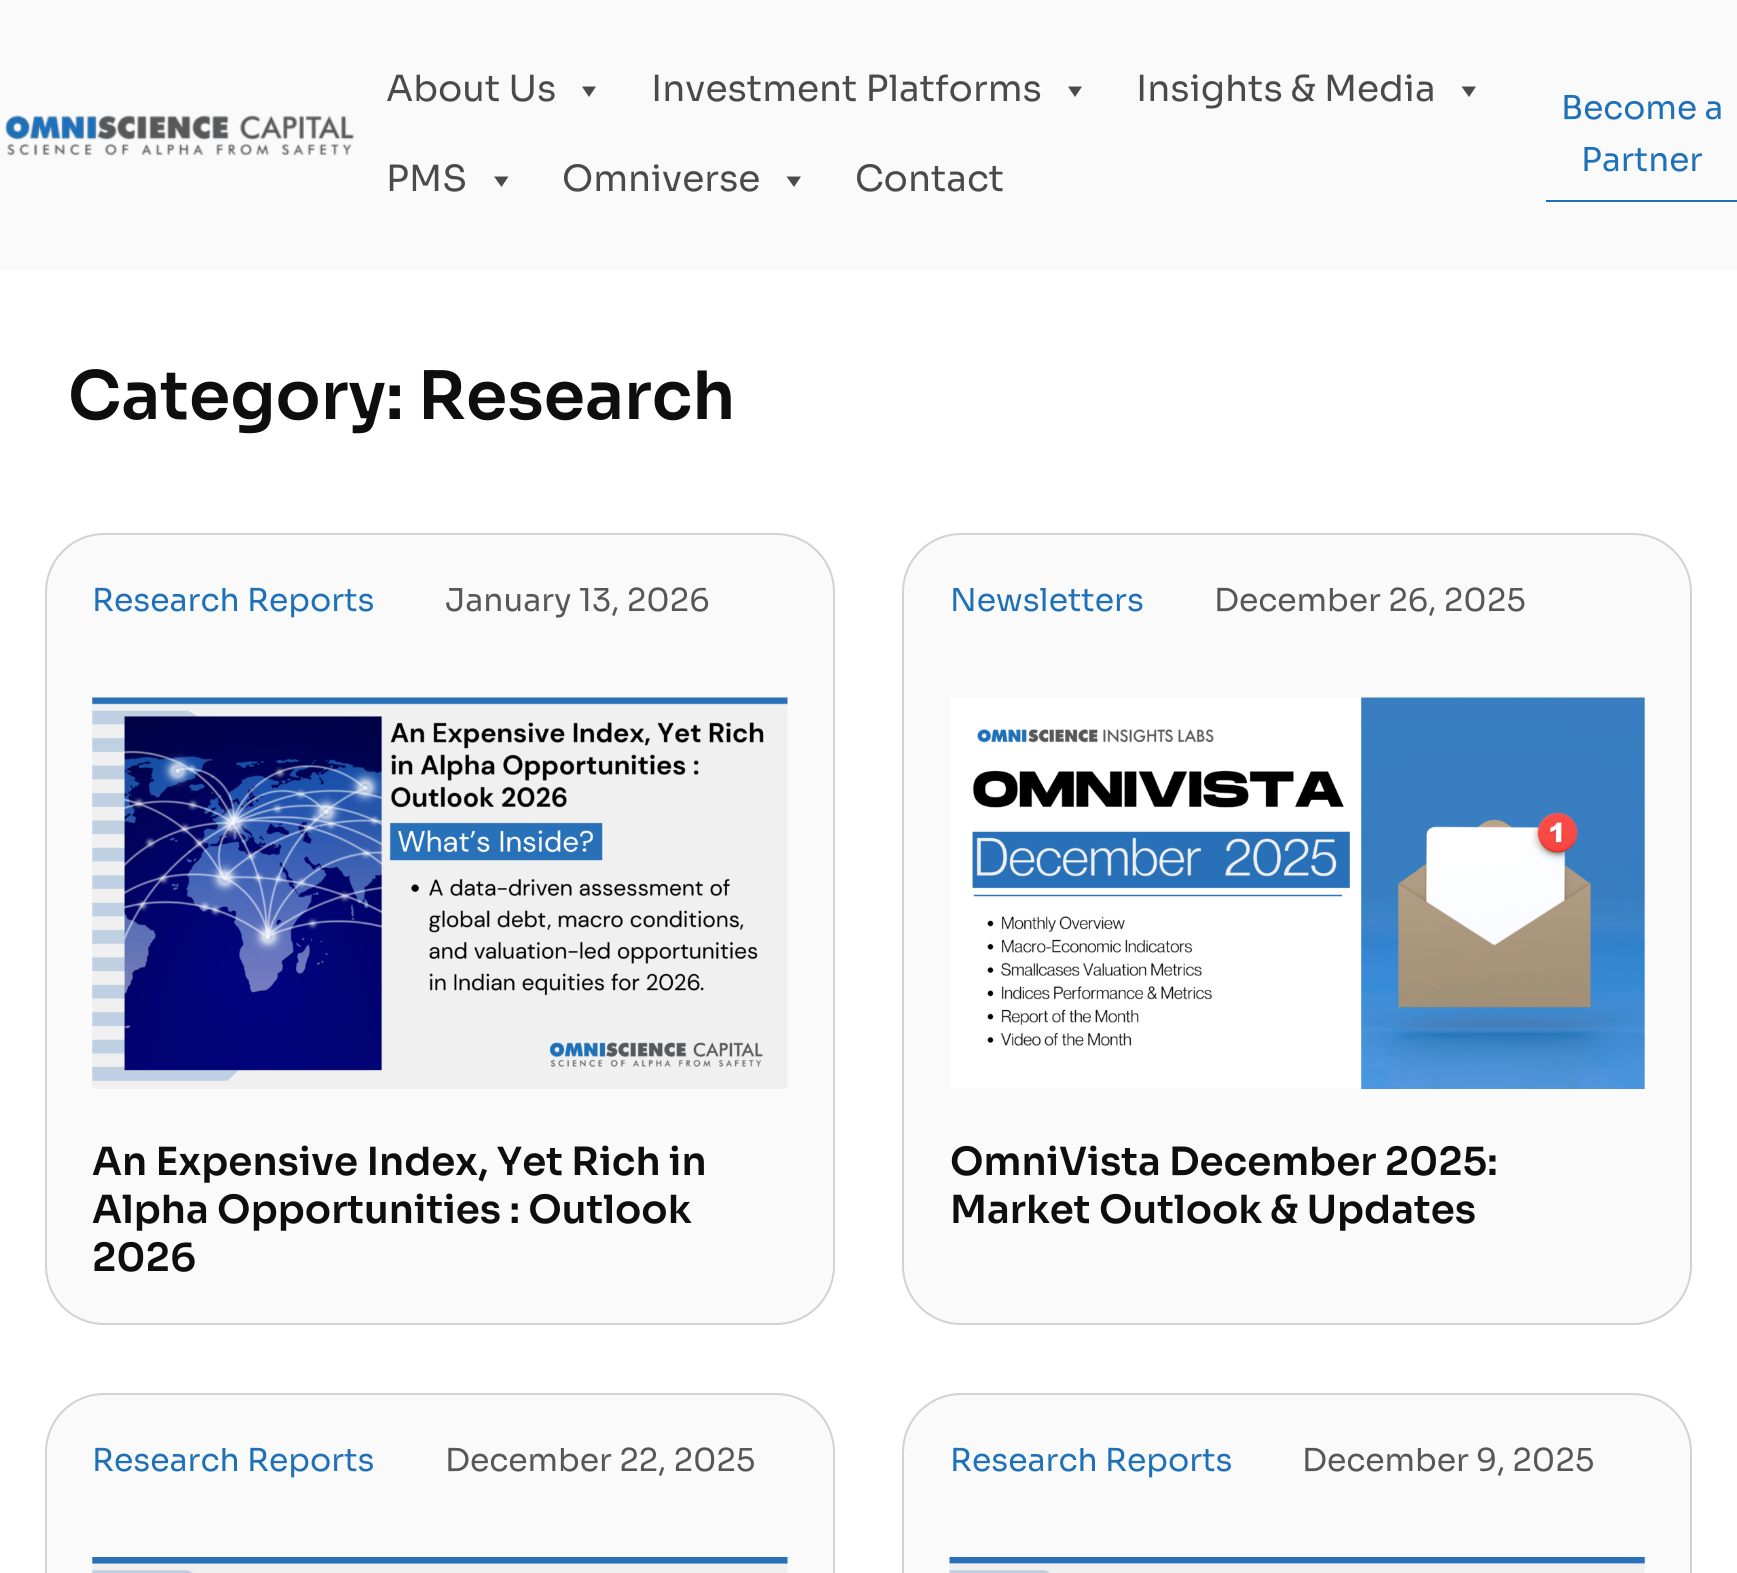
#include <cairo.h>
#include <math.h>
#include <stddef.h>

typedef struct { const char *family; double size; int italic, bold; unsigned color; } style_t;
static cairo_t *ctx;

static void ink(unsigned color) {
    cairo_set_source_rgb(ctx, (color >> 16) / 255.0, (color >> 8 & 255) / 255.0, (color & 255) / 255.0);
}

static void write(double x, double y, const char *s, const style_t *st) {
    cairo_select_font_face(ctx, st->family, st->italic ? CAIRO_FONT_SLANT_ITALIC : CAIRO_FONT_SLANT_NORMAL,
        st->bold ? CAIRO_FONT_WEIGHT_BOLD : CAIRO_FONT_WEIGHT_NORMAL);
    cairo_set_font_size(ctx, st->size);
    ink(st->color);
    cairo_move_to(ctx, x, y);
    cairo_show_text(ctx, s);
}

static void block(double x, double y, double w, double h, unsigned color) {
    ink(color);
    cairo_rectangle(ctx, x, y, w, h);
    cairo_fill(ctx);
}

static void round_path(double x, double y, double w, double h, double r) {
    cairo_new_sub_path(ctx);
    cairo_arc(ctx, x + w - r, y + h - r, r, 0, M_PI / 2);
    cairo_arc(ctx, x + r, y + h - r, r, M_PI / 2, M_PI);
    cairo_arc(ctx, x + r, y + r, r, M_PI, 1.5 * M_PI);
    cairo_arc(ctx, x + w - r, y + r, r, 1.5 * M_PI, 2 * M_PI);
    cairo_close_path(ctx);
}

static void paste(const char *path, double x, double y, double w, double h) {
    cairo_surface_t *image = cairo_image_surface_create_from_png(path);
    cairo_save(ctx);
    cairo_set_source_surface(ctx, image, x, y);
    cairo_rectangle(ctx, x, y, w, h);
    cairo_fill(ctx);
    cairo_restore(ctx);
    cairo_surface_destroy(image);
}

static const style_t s1 = {"Sora", 36, 0, 0, 0x4a4a4a};
static const style_t s2 = {"Sora", 32.75, 0, 0, 0x1e70b9};
static const style_t s3 = {"Sora SemiBold", 66.5, 0, 0, 0x0e0e0e};
static const style_t s4 = {"Sora", 31.5, 0, 0, 0x1e70b9};
static const style_t s5 = {"Sora", 31.5, 0, 0, 0x575757};
static const style_t s6 = {"Sora SemiBold", 38.75, 0, 0, 0x0e0e0e};

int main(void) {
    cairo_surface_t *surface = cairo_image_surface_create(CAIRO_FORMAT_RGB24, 1737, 1573);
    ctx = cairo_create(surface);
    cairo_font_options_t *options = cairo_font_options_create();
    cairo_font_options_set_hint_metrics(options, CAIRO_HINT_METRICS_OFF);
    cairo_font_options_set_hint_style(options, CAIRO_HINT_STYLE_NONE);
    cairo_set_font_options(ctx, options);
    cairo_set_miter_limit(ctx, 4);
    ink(0xffffff);
    cairo_paint(ctx);
    block(0, 0, 1737, 270, 0xfafafa);
    paste("pic1.png", 4, 115, 351, 41);
    write(386, 101, "About Us", &s1);
    cairo_new_path(ctx);
    cairo_move_to(ctx, 596, 86.5);
    cairo_line_to(ctx, 589, 97);
    cairo_line_to(ctx, 582, 86.5);
    cairo_close_path(ctx);
    cairo_fill(ctx);
    write(651, 101, "Investment Platforms", &s1);
    cairo_new_path(ctx);
    cairo_move_to(ctx, 1082, 86.5);
    cairo_line_to(ctx, 1075, 97);
    cairo_line_to(ctx, 1068, 86.5);
    cairo_close_path(ctx);
    cairo_fill(ctx);
    write(1136, 101, "Insights & Media", &s1);
    cairo_new_path(ctx);
    cairo_move_to(ctx, 1476, 86.5);
    cairo_line_to(ctx, 1469, 97);
    cairo_line_to(ctx, 1461.5, 86.5);
    cairo_close_path(ctx);
    cairo_fill(ctx);
    write(386, 191, "PMS", &s1);
    cairo_new_path(ctx);
    cairo_move_to(ctx, 508.5, 176.5);
    cairo_line_to(ctx, 501.5, 187);
    cairo_line_to(ctx, 494, 176.5);
    cairo_close_path(ctx);
    cairo_fill(ctx);
    write(562, 191, "Omniverse", &s1);
    cairo_new_path(ctx);
    cairo_move_to(ctx, 801, 176.5);
    cairo_line_to(ctx, 794, 187);
    cairo_line_to(ctx, 786.5, 176.5);
    cairo_close_path(ctx);
    cairo_fill(ctx);
    write(855, 191, "Contact", &s1);
    block(1546, 200, 191, 2, 0x1e70b9);
    write(1561, 119, "Become a", &s2);
    write(1581, 171, "Partner", &s2);
    write(68, 419, "Category: Research", &s3);
    ink(0xfafafa);
    round_path(46, 534, 788, 790, 58);
    cairo_fill_preserve(ctx);
    ink(0xd2d2d2);
    cairo_stroke(ctx);
    write(92, 611, "Research Reports", &s4);
    write(445, 611, "January 13, 2026", &s5);
    paste("pic2.png", 92, 697, 696, 392);
    write(92, 1175, "An Expensive Index, Yet Rich in", &s6);
    write(92, 1223, "Alpha Opportunities : Outlook", &s6);
    write(92, 1271, "2026", &s6);
    ink(0xfafafa);
    round_path(903, 534, 788, 790, 58);
    cairo_fill_preserve(ctx);
    ink(0xd2d2d2);
    cairo_stroke(ctx);
    write(950, 611, "Newsletters", &s4);
    write(1214, 611, "December 26, 2025", &s5);
    paste("pic3.png", 950, 697, 695, 392);
    write(950, 1175, "OmniVista December 2025:", &s6);
    write(950, 1223, "Market Outlook & Updates", &s6);
    ink(0xfafafa);
    round_path(46, 1394, 788, 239, 58);
    cairo_fill_preserve(ctx);
    ink(0xd2d2d2);
    cairo_stroke(ctx);
    write(92, 1471, "Research Reports", &s4);
    write(445, 1471, "December 22, 2025", &s5);
    paste("pic4.png", 92, 1557, 696, 16);
    ink(0xfafafa);
    round_path(903, 1394, 788, 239, 58);
    cairo_fill_preserve(ctx);
    ink(0xd2d2d2);
    cairo_stroke(ctx);
    write(950, 1471, "Research Reports", &s4);
    write(1302, 1471, "December 9, 2025", &s5);
    paste("pic5.png", 949, 1557, 696, 16);
    cairo_surface_write_to_png(surface, "screenshot.png");
    cairo_font_options_destroy(options);
    cairo_destroy(ctx);
    cairo_surface_destroy(surface);
    return 0;
}
